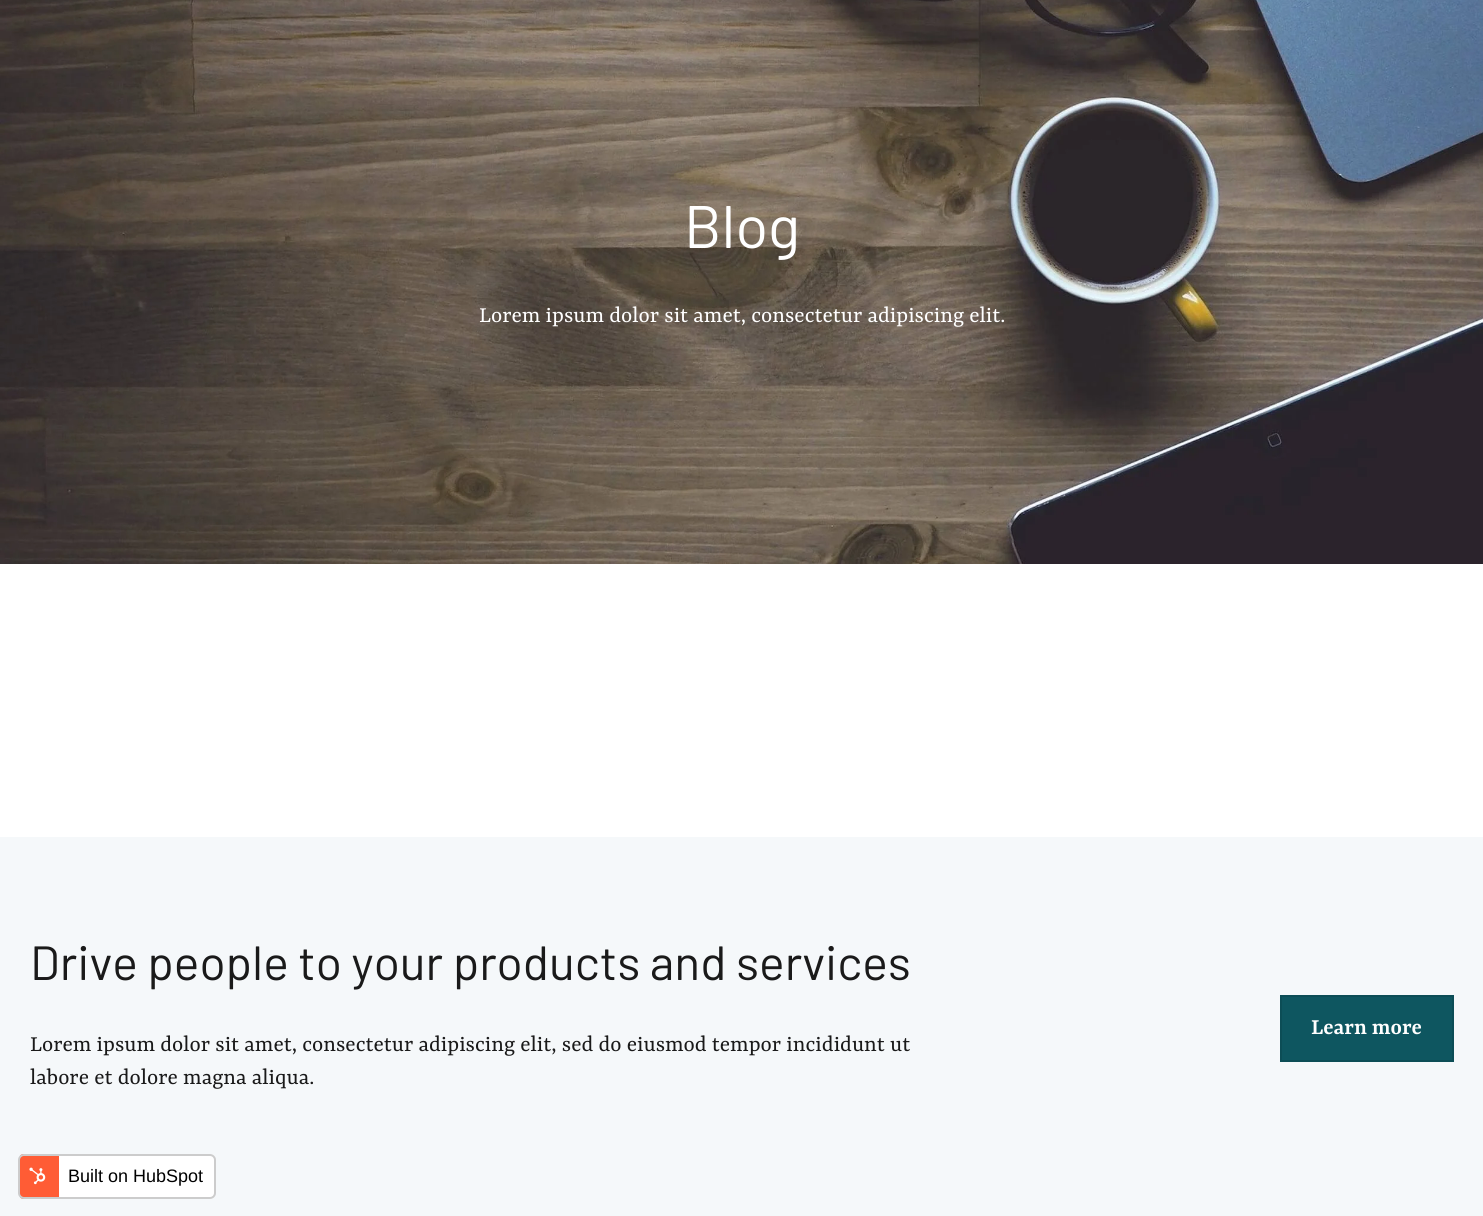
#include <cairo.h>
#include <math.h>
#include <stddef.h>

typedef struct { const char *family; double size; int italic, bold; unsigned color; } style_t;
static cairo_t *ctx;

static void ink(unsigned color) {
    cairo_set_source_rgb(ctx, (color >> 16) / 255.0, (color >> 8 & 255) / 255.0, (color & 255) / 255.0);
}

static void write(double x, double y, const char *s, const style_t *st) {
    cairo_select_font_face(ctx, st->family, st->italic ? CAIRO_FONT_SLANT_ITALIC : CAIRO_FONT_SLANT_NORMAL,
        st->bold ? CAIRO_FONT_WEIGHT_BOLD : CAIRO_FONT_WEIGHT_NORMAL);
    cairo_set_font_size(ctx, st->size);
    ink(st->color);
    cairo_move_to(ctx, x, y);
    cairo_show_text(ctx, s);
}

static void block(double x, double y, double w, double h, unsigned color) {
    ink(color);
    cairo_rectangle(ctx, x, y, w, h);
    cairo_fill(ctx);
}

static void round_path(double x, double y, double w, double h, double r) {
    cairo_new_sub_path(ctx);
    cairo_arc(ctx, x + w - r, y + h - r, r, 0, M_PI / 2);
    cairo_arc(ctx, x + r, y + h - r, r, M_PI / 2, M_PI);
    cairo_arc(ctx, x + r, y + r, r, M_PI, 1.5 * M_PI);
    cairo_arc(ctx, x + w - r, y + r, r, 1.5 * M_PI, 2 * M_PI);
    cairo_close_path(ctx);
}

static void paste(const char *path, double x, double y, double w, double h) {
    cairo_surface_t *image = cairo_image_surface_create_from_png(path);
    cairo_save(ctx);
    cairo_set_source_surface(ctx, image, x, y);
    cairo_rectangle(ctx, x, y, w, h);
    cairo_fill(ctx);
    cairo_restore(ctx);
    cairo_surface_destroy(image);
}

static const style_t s1 = {"Barlow", 60, 0, 0, 0xffffff};
static const style_t s2 = {"Rasa", 24, 0, 0, 0xffffff};
static const style_t s3 = {"Barlow", 48, 0, 0, 0x1a1a1a};
static const style_t s4 = {"Rasa", 24, 0, 0, 0x1a1a1a};
static const style_t s5 = {"Rasa SemiBold", 24, 0, 0, 0xffffff};
static const style_t s6 = {"Liberation Sans", 18, 0, 0, 0x000000};

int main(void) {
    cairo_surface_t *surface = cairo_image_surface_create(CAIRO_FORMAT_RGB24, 1483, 1216);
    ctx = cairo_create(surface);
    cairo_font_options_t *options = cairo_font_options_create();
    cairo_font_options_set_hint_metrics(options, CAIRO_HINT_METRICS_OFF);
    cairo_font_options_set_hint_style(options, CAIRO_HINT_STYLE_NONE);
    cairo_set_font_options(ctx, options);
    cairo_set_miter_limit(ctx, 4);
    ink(0xffffff);
    cairo_paint(ctx);
    paste("pic1.png", 0, 0, 1483, 564);
    write(684, 248, "Blog", &s1);
    write(479, 322, "Lorem ipsum dolor sit amet, consectetur adipiscing elit.", &s2);
    block(0, 837, 1483, 379, 0xf5f8fa);
    write(30, 980, "Drive people to your products and services", &s3);
    write(30, 1051, "Lorem ipsum dolor sit amet, consectetur adipiscing elit, sed do eiusmod tempor incididunt ut", &s4);
    write(30, 1084, "labore et dolore magna aliqua.", &s4);
    ink(0x0e5660);
    cairo_rectangle(ctx, 1281, 996, 172, 65);
    cairo_fill_preserve(ctx);
    ink(0x0c4d56);
    cairo_stroke(ctx);
    write(1311, 1034, "Learn more", &s5);
    cairo_save(ctx);
    round_path(18, 1154, 198, 45, 6);
    cairo_clip(ctx);
    block(20, 1154, 39, 45, 0xff5c35);
    block(59, 1154, 156, 45, 0xffffff);
    cairo_restore(ctx);
    round_path(19, 1155, 196, 43, 5);
    ink(0xcccccc);
    cairo_stroke(ctx);
    paste("pic2.png", 29, 1167, 17, 18);
    write(68, 1182, "Built on HubSpot", &s6);
    cairo_surface_write_to_png(surface, "screenshot.png");
    cairo_font_options_destroy(options);
    cairo_destroy(ctx);
    cairo_surface_destroy(surface);
    return 0;
}
